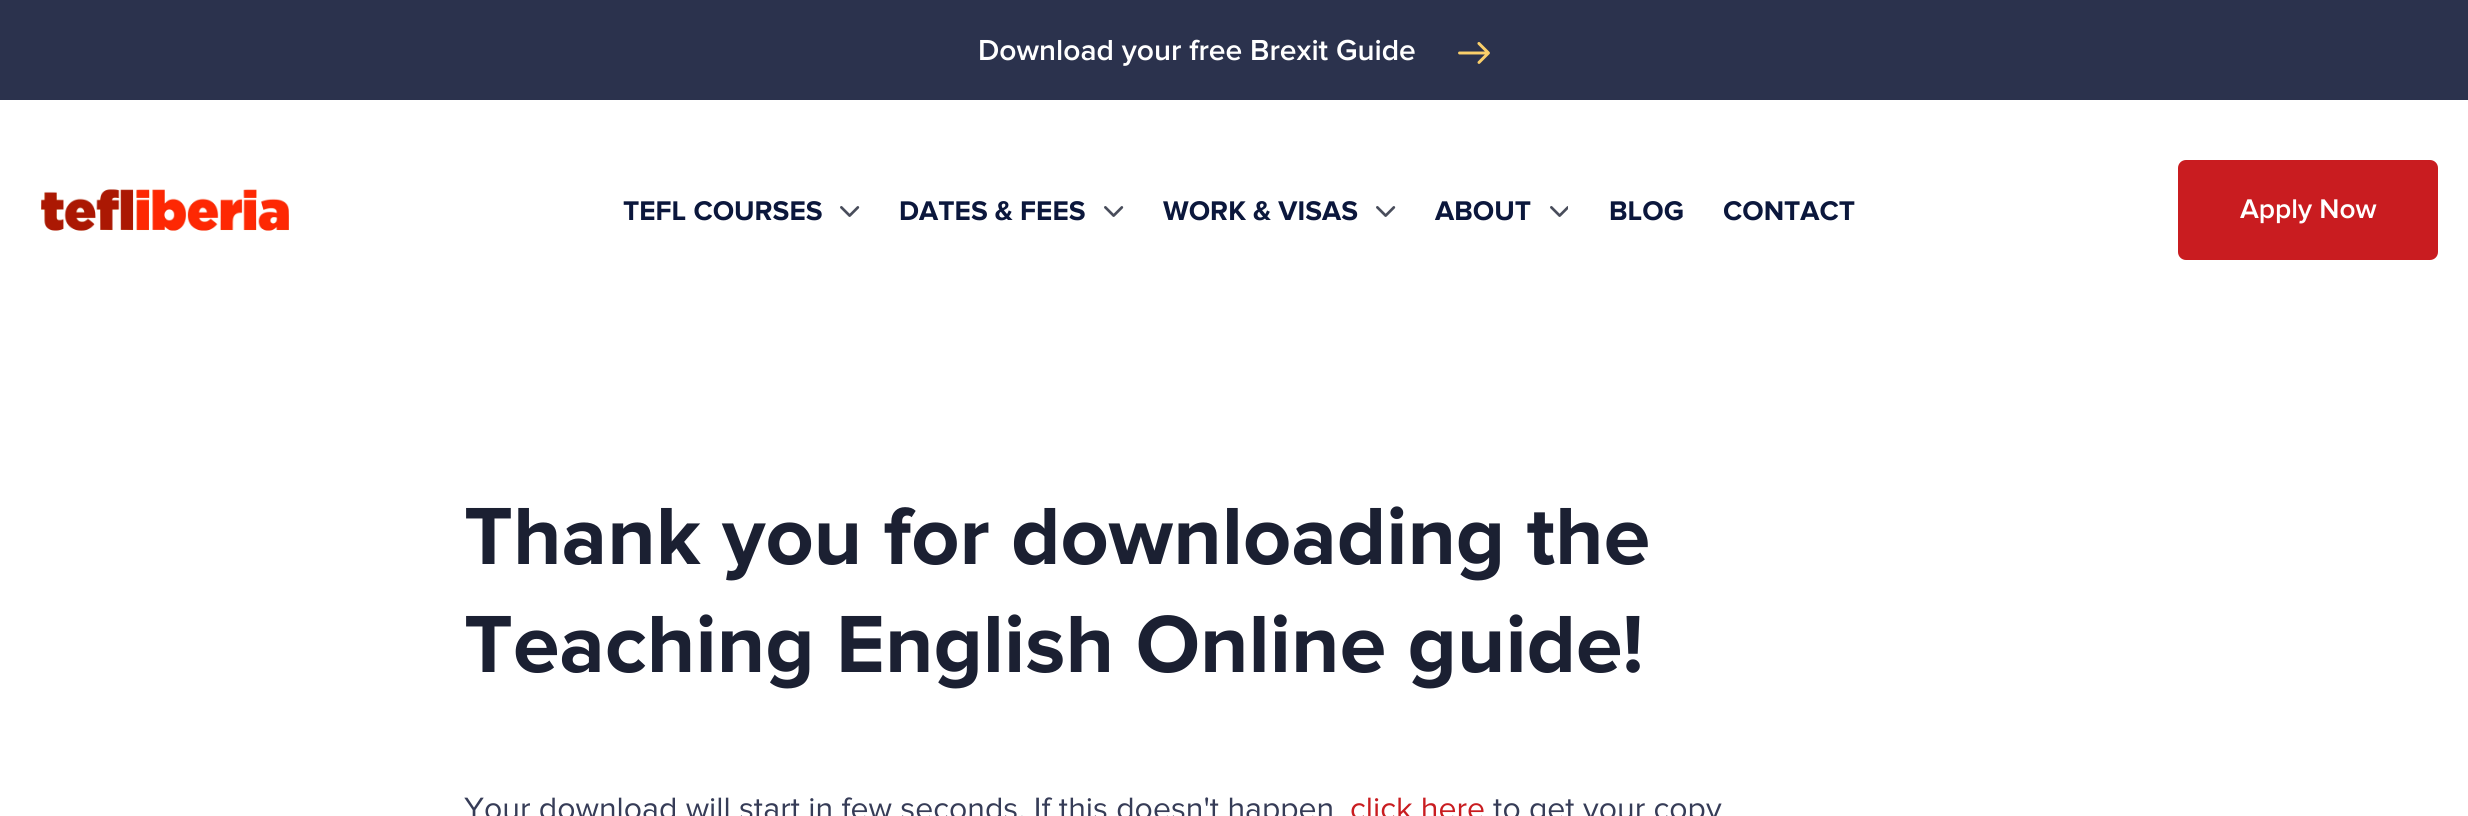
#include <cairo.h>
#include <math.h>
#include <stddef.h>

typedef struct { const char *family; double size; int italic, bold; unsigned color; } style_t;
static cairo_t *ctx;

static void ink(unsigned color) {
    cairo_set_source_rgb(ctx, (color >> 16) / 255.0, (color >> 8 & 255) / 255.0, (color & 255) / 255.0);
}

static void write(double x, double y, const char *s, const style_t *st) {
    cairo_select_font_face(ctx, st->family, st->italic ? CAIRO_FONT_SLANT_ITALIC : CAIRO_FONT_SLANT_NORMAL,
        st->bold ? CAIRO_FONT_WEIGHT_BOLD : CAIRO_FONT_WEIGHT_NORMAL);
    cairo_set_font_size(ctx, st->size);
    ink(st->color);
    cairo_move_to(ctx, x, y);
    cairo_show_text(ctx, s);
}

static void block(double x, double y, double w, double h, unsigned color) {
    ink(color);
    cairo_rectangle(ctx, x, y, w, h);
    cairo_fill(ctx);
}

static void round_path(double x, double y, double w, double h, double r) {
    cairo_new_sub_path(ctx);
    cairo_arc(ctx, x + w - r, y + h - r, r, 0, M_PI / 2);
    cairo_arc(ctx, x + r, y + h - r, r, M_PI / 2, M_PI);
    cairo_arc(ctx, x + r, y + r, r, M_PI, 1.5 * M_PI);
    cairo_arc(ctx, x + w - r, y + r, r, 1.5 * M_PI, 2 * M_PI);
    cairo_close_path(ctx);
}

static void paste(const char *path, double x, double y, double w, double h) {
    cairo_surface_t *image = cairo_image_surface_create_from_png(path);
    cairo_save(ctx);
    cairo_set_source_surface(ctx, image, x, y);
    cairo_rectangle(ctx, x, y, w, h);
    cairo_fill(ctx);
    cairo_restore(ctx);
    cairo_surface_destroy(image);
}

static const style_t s1 = {"Proxima Nova SemiBold", 30, 0, 0, 0xffffff};
static const style_t s2 = {"Proxima Nova", 28, 0, 1, 0x0b173c};
static const style_t s3 = {"Proxima Nova SemiBold", 28, 0, 0, 0xffffff};
static const style_t s4 = {"Proxima Nova", 84, 0, 1, 0x1b2032};
static const style_t s5 = {"Proxima Nova", 32, 0, 0, 0x363c57};
static const style_t s6 = {"Proxima Nova", 32, 0, 0, 0xc91c20};

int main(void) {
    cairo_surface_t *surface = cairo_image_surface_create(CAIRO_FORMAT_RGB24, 2468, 816);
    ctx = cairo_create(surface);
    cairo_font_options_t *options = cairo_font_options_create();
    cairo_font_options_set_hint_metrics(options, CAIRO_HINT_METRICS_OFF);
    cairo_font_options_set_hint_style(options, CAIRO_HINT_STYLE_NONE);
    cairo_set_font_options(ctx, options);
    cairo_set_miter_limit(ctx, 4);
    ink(0xffffff);
    cairo_paint(ctx);
    block(0, 0, 2468, 100, 0x2b324d);
    write(978, 60, "Download your free Brexit Guide", &s1);
    paste("pic1.png", 1458, 42, 32, 22);
    paste("pic2.png", 41, 189, 248, 42);
    write(623, 220, "TEFL COURSES", &s2);
    paste("pic3.png", 840, 206, 20, 11);
    write(899, 220, "DATES & FEES", &s2);
    paste("pic3.png", 1104, 206, 20, 11);
    write(1163, 220, "WORK & VISAS", &s2);
    paste("pic3.png", 1376, 206, 20, 11);
    write(1435, 220, "ABOUT", &s2);
    paste("pic4.png", 1550, 206, 18, 11);
    write(1609, 220, "BLOG", &s2);
    write(1723, 220, "CONTACT", &s2);
    ink(0xc91c20);
    round_path(2179, 161, 258, 98, 7);
    cairo_fill_preserve(ctx);
    cairo_stroke(ctx);
    write(2240, 218, "Apply Now", &s3);
    write(464, 564, "Thank you for downloading the", &s4);
    write(464, 672, "Teaching English Online guide!", &s4);
    write(464, 819, "Your download will start in few seconds. If this doesn't happen", &s5);
    write(1350, 819, "click here", &s6);
    write(1493, 819, "to get your copy", &s5);
    cairo_surface_write_to_png(surface, "screenshot.png");
    cairo_font_options_destroy(options);
    cairo_destroy(ctx);
    cairo_surface_destroy(surface);
    return 0;
}
